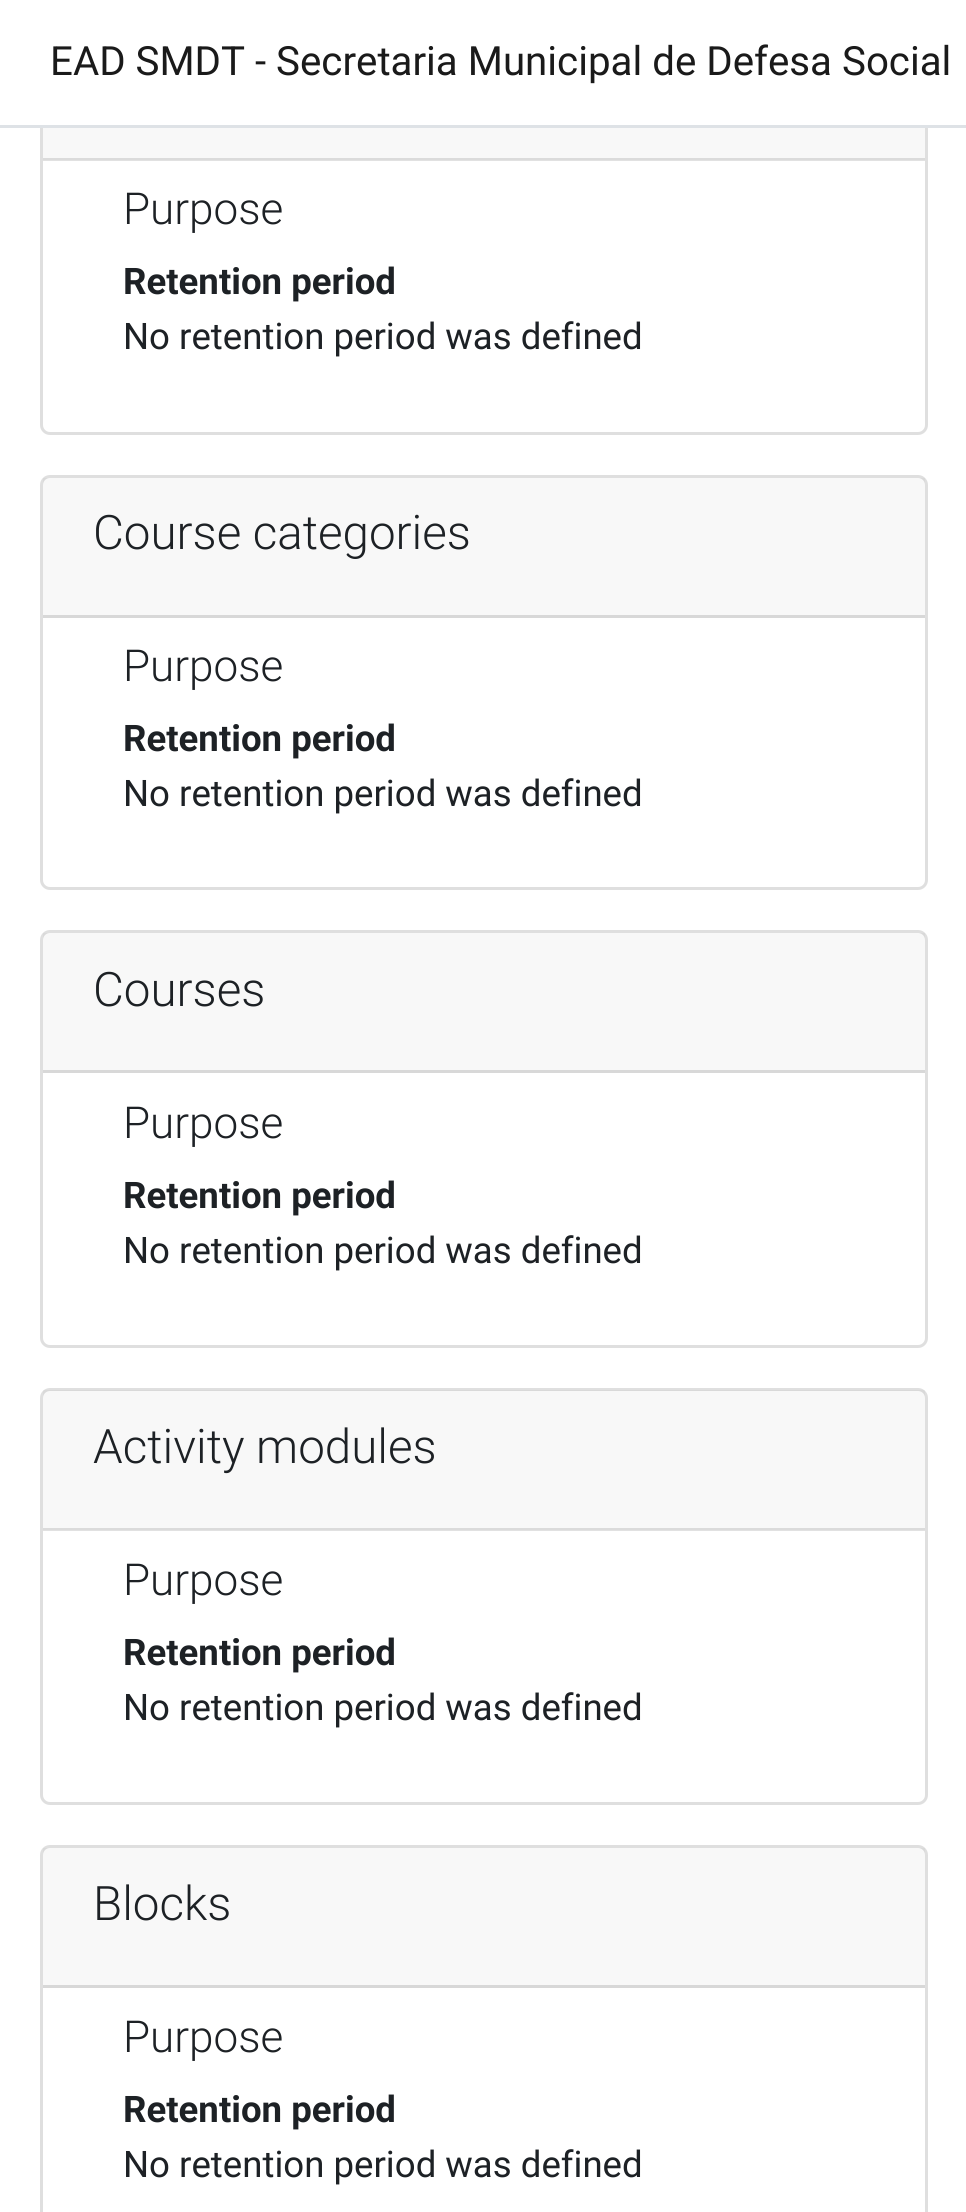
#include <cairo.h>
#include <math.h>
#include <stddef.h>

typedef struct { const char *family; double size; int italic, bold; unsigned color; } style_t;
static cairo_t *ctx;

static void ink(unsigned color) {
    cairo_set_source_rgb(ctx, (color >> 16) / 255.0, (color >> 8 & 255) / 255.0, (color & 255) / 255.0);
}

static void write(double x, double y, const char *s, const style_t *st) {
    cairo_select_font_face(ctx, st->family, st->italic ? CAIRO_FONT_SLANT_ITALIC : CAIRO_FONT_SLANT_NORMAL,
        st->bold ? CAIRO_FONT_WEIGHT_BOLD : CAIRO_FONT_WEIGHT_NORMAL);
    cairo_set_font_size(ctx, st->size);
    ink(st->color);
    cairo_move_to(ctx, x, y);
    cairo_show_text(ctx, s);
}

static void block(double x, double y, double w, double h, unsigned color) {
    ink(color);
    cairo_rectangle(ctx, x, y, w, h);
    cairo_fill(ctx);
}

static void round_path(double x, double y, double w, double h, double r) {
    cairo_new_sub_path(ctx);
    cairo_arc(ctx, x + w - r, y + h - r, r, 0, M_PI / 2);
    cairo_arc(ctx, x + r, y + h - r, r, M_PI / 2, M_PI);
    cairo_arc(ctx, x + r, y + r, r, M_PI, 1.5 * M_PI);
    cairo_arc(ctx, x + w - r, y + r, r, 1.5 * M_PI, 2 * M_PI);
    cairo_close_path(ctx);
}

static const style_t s1 = {"Roboto", 40.25, 0, 0, 0x1a1a1a};
static const style_t s2 = {"Roboto Light", 44, 0, 0, 0x1d2125};
static const style_t s3 = {"Roboto", 36.6, 0, 1, 0x1d2125};
static const style_t s4 = {"Roboto", 36.6, 0, 0, 0x1d2125};
static const style_t s5 = {"Roboto Light", 47.5, 0, 0, 0x1d2125};

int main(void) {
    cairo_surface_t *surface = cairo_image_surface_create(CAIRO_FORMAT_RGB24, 966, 2212);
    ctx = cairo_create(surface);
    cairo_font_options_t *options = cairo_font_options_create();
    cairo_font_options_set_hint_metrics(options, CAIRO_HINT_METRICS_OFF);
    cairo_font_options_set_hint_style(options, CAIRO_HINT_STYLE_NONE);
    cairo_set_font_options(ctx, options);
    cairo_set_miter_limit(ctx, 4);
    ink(0xffffff);
    cairo_paint(ctx);
    round_path(41.5, 19.5, 885, 414, 8.5);
    ink(0xdfdfdf);
    cairo_set_line_width(ctx, 3);
    cairo_stroke(ctx);
    block(40, 18, 888, 107, 0xffffff);
    block(0, 125, 966, 3, 0xdee2e6);
    write(50, 75, "EAD SMDT - Secretaria Municipal de Defesa Social", &s1);
    cairo_set_source_rgba(ctx, 0, 0, 0, 0.03);
    cairo_rectangle(ctx, 43, 128, 882, 32);
    cairo_fill(ctx);
    cairo_set_source_rgba(ctx, 0, 0, 0, 0.12);
    cairo_rectangle(ctx, 43, 158, 882, 3);
    cairo_fill(ctx);
    write(123, 224, "Purpose", &s2);
    write(123, 294, "Retention period", &s3);
    write(123, 349, "No retention period was defined", &s4);
    round_path(41.5, 476.5, 885, 412, 8.5);
    ink(0xdfdfdf);
    cairo_stroke(ctx);
    cairo_set_source_rgba(ctx, 0, 0, 0, 0.03);
    cairo_rectangle(ctx, 43, 478, 882, 137);
    cairo_fill(ctx);
    block(43, 615, 882, 3, 0xd8d8d8);
    write(93, 549, "Course categories", &s5);
    write(123, 681, "Purpose", &s2);
    write(123, 751, "Retention period", &s3);
    write(123, 806, "No retention period was defined", &s4);
    round_path(41.5, 931.5, 885, 415, 8.5);
    ink(0xdfdfdf);
    cairo_stroke(ctx);
    cairo_set_source_rgba(ctx, 0, 0, 0, 0.03);
    cairo_rectangle(ctx, 43, 933, 882, 137);
    cairo_fill(ctx);
    block(43, 1070, 882, 3, 0xd8d8d8);
    write(93, 1006, "Courses", &s5);
    write(123, 1138, "Purpose", &s2);
    write(123, 1208, "Retention period", &s3);
    write(123, 1263, "No retention period was defined", &s4);
    round_path(41.5, 1389.5, 885, 414, 8.5);
    ink(0xdfdfdf);
    cairo_stroke(ctx);
    cairo_set_source_rgba(ctx, 0, 0, 0, 0.03);
    cairo_rectangle(ctx, 43, 1390, 882, 140);
    cairo_fill(ctx);
    cairo_set_source_rgba(ctx, 0, 0, 0, 0.12);
    cairo_rectangle(ctx, 43, 1528, 882, 3);
    cairo_fill(ctx);
    write(93, 1463, "Activity modules", &s5);
    write(123, 1595, "Purpose", &s2);
    write(123, 1665, "Retention period", &s3);
    write(123, 1720, "No retention period was defined", &s4);
    round_path(41.5, 1846.5, 885, 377, 8.5);
    ink(0xdfdfdf);
    cairo_stroke(ctx);
    cairo_set_source_rgba(ctx, 0, 0, 0, 0.03);
    cairo_rectangle(ctx, 43, 1848, 882, 137);
    cairo_fill(ctx);
    block(43, 1985, 882, 3, 0xd8d8d8);
    write(93, 1920, "Blocks", &s5);
    write(123, 2052, "Purpose", &s2);
    write(123, 2122, "Retention period", &s3);
    write(123, 2177, "No retention period was defined", &s4);
    cairo_surface_write_to_png(surface, "screenshot.png");
    cairo_font_options_destroy(options);
    cairo_destroy(ctx);
    cairo_surface_destroy(surface);
    return 0;
}
